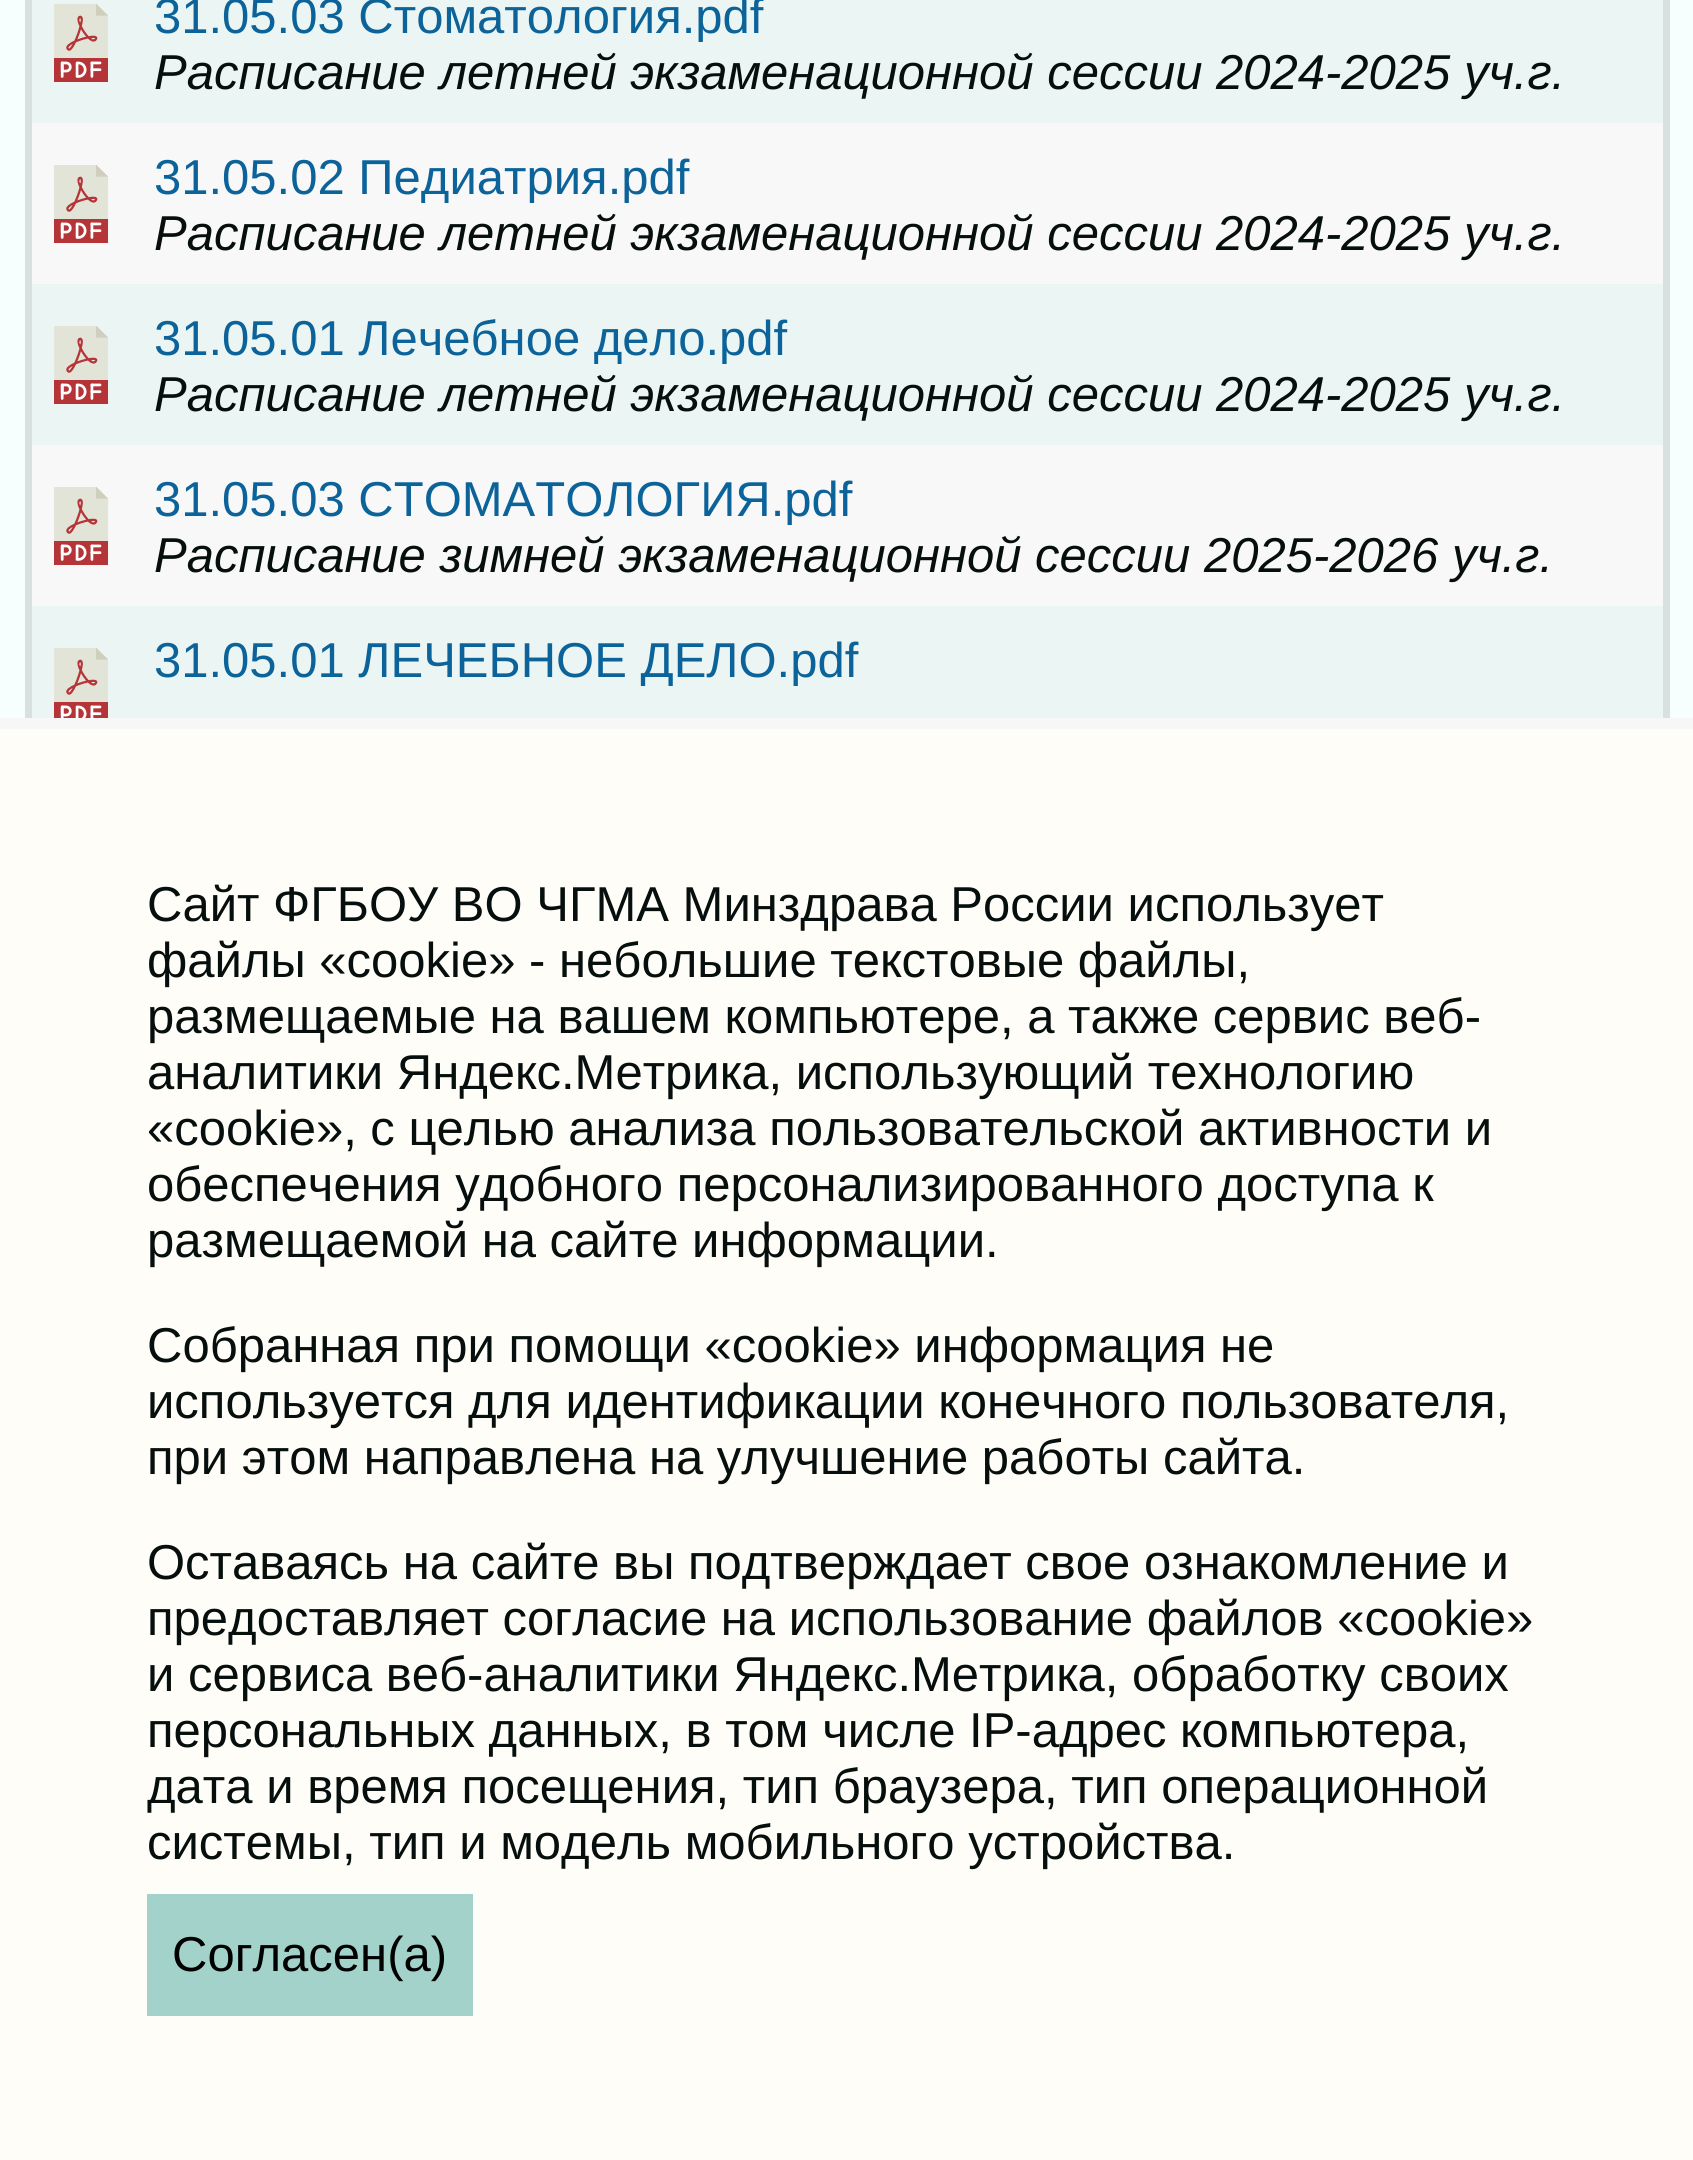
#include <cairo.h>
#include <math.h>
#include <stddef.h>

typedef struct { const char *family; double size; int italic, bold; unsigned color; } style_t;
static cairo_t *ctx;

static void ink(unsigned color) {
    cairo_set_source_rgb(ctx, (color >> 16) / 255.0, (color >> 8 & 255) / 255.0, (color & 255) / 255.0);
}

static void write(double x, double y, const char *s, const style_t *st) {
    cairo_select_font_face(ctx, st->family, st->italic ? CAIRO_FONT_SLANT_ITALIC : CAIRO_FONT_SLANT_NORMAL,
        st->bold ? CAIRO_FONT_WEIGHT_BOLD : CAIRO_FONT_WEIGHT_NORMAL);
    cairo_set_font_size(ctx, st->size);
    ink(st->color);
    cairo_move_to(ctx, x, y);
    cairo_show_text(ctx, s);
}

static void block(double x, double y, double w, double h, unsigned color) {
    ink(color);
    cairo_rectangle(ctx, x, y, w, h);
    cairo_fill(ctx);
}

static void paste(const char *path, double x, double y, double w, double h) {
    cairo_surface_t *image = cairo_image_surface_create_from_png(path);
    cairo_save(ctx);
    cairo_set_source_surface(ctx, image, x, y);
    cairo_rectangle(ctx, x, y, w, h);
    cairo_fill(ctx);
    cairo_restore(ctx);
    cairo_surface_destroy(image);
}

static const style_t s1 = {"Liberation Sans", 49, 0, 0, 0x0c639a};
static const style_t s2 = {"Liberation Sans", 49, 1, 0, 0x060f0d};
static const style_t s3 = {"Liberation Sans", 49, 0, 0, 0x060f0d};
static const style_t s4 = {"Liberation Sans", 49, 0, 0, 0x000000};

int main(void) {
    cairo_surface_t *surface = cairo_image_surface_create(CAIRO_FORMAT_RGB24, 1693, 2160);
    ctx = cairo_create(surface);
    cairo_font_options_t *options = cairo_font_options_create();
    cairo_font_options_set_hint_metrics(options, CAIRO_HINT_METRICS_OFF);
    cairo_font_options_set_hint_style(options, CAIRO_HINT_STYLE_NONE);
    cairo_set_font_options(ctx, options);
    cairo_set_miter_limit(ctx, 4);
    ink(0xf6fffd);
    cairo_paint(ctx);
    cairo_rectangle(ctx, 28.5, -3.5, 1638, 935);
    ink(0xd8e1df);
    cairo_set_line_width(ctx, 7);
    cairo_stroke(ctx);
    block(32, 0, 1631, 123, 0xebf5f3);
    paste("pic1.png", 54, 4, 54, 78);
    cairo_save(ctx);
    cairo_rectangle(ctx, 154, 0, 1411, 42);
    cairo_clip(ctx);
    write(154, 33, "31.05.03 Стоматология.pdf", &s1);
    cairo_restore(ctx);
    write(154, 89, "Расписание летней экзаменационной сессии 2024-2025 уч.г.", &s2);
    block(32, 123, 1631, 161, 0xf8f8f8);
    paste("pic2.png", 54, 165, 55, 78);
    cairo_save(ctx);
    cairo_rectangle(ctx, 154, 147, 1411, 56);
    cairo_clip(ctx);
    write(154, 194, "31.05.02 Педиатрия.pdf", &s1);
    cairo_restore(ctx);
    write(154, 250, "Расписание летней экзаменационной сессии 2024-2025 уч.г.", &s2);
    block(32, 284, 1631, 161, 0xebf5f3);
    paste("pic1.png", 54, 326, 54, 78);
    cairo_save(ctx);
    cairo_rectangle(ctx, 154, 308, 1411, 56);
    cairo_clip(ctx);
    write(154, 355, "31.05.01 Лечебное дело.pdf", &s1);
    cairo_restore(ctx);
    write(154, 411, "Расписание летней экзаменационной сессии 2024-2025 уч.г.", &s2);
    block(32, 445, 1631, 161, 0xf8f8f8);
    paste("pic2.png", 54, 487, 55, 78);
    cairo_save(ctx);
    cairo_rectangle(ctx, 154, 469, 1400, 56);
    cairo_clip(ctx);
    write(154, 516, "31.05.03 СТОМАТОЛОГИЯ.pdf", &s1);
    cairo_restore(ctx);
    write(154, 572, "Расписание зимней экзаменационной сессии 2025-2026 уч.г.", &s2);
    block(32, 606, 1631, 112, 0xebf5f3);
    paste("pic3.png", 54, 648, 54, 70);
    cairo_save(ctx);
    cairo_rectangle(ctx, 154, 630, 1400, 56);
    cairo_clip(ctx);
    write(154, 677, "31.05.01 ЛЕЧЕБНОЕ ДЕЛО.pdf", &s1);
    cairo_restore(ctx);
    block(0, 729, 1693, 1431, 0xfffdf7);
    block(0, 718, 1693, 11, 0xf7f7f7);
    write(147, 921, "Cайт ФГБОУ ВО ЧГМА Минздрава России использует", &s3);
    write(147, 977, "файлы «cookie» - небольшие текстовые файлы,", &s3);
    write(147, 1033, "размещаемые на вашем компьютере, а также сервис веб-", &s3);
    write(147, 1089, "аналитики Яндекс.Метрика, использующий технологию", &s3);
    write(147, 1145, "«cookie», с целью анализа пользовательской активности и", &s3);
    write(147, 1201, "обеспечения удобного персонализированного доступа к", &s3);
    write(147, 1257, "размещаемой на сайте информации.", &s3);
    write(147, 1362, "Собранная при помощи «cookie» информация не", &s3);
    write(147, 1418, "используется для идентификации конечного пользователя,", &s3);
    write(147, 1474, "при этом направлена на улучшение работы сайта.", &s3);
    write(147, 1579, "Оставаясь на сайте вы подтверждает свое ознакомление и", &s3);
    write(147, 1635, "предоставляет согласие на использование файлов «cookie»", &s3);
    write(147, 1691, "и сервиса веб-аналитики Яндекс.Метрика, обработку своих", &s3);
    write(147, 1747, "персональных данных, в том числе IP-адрес компьютера,", &s3);
    write(147, 1803, "дата и время посещения, тип браузера, тип операционной", &s3);
    write(147, 1859, "системы, тип и модель мобильного устройства.", &s3);
    block(147, 1894, 326, 122, 0xa2d2c9);
    write(172, 1971, "Согласен(а)", &s4);
    cairo_surface_write_to_png(surface, "screenshot.png");
    cairo_font_options_destroy(options);
    cairo_destroy(ctx);
    cairo_surface_destroy(surface);
    return 0;
}
